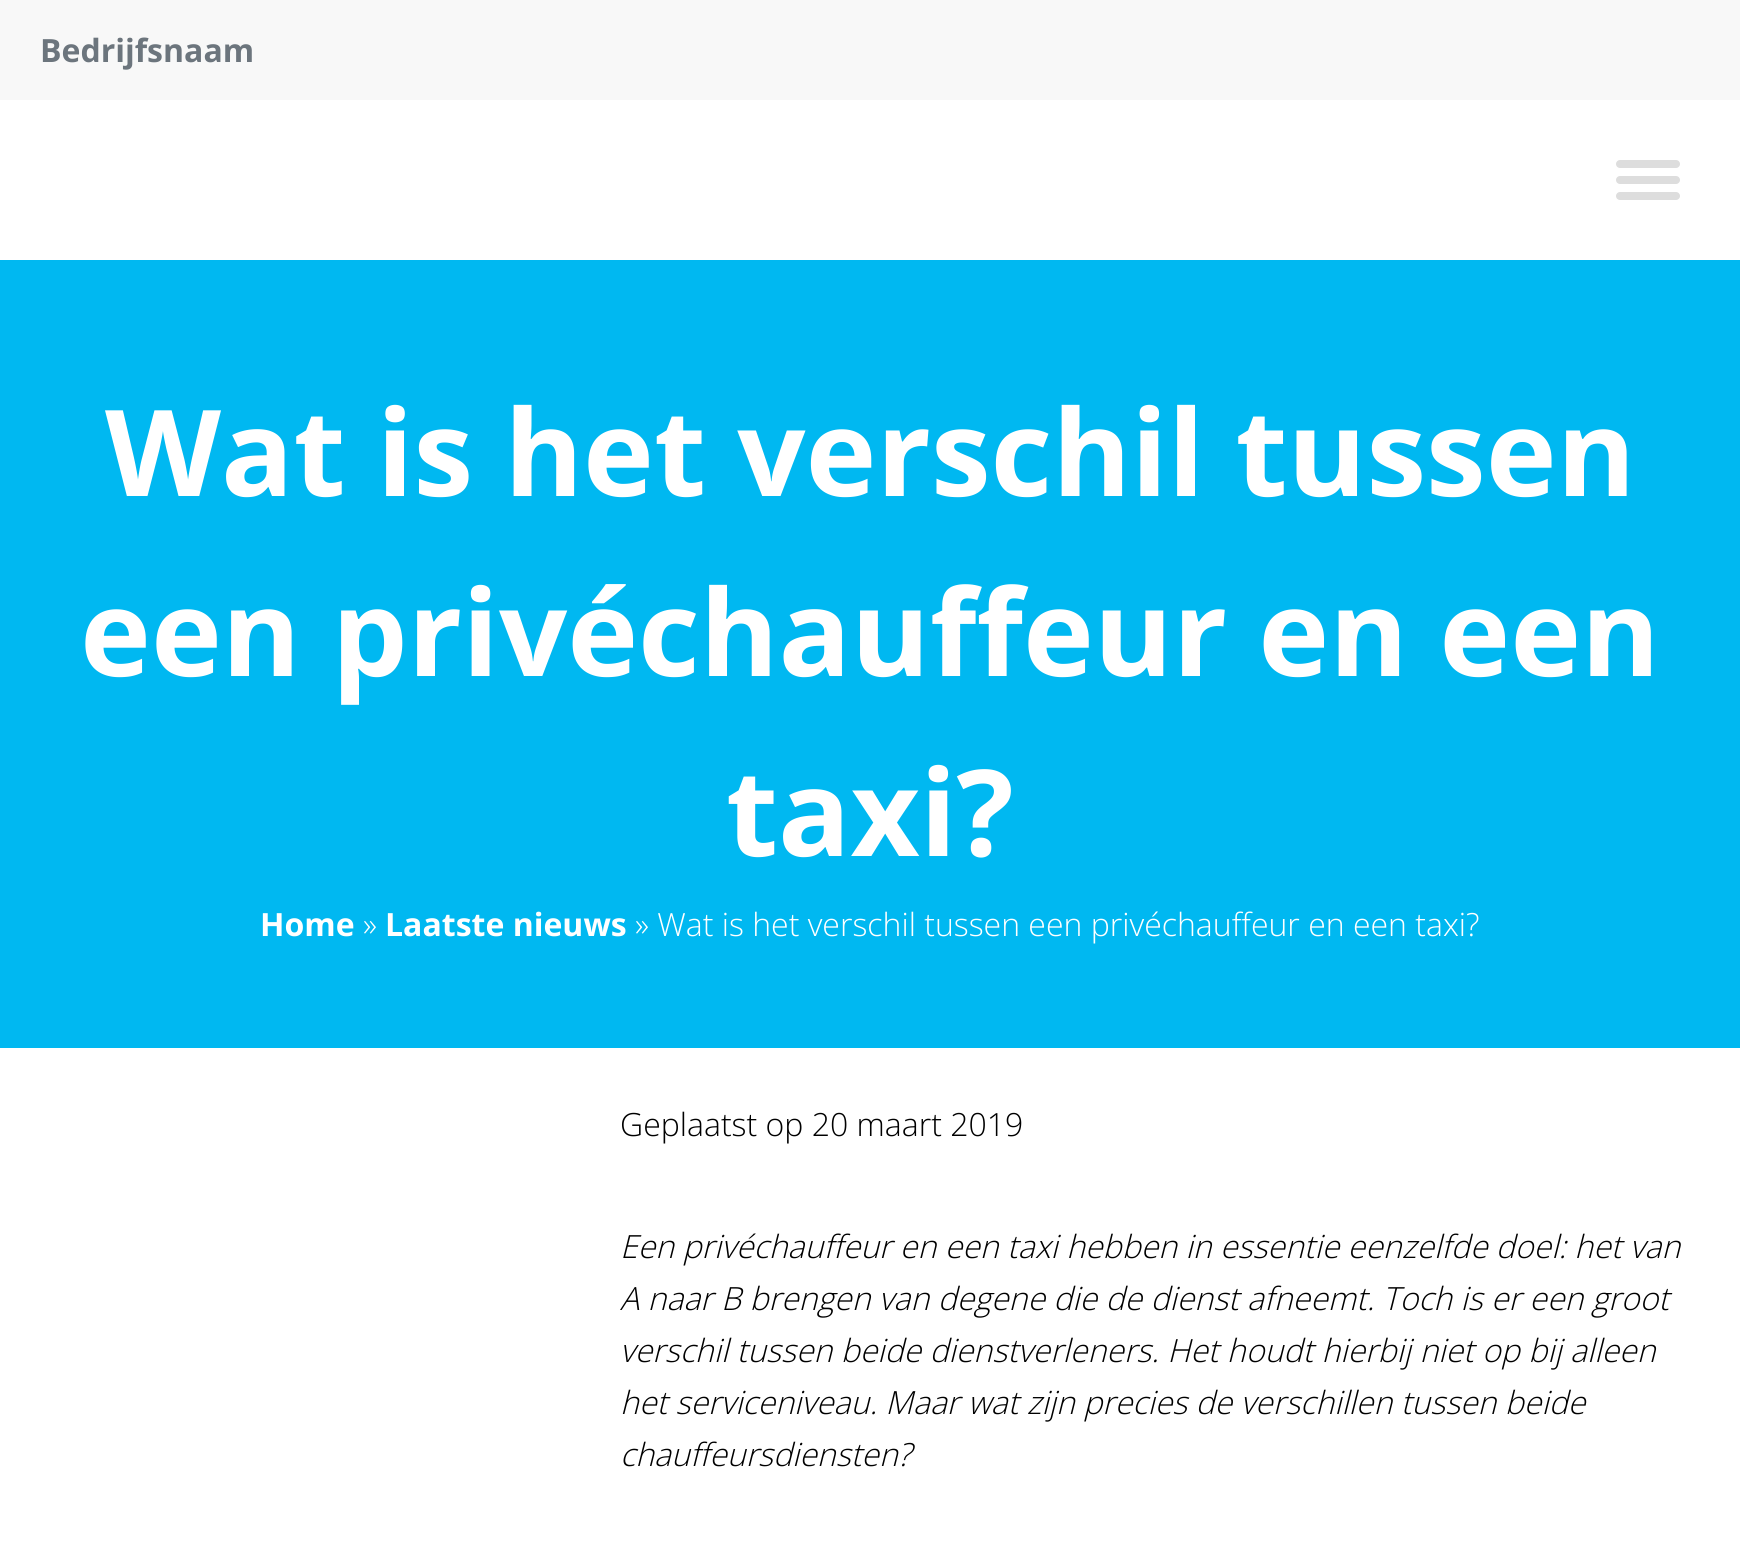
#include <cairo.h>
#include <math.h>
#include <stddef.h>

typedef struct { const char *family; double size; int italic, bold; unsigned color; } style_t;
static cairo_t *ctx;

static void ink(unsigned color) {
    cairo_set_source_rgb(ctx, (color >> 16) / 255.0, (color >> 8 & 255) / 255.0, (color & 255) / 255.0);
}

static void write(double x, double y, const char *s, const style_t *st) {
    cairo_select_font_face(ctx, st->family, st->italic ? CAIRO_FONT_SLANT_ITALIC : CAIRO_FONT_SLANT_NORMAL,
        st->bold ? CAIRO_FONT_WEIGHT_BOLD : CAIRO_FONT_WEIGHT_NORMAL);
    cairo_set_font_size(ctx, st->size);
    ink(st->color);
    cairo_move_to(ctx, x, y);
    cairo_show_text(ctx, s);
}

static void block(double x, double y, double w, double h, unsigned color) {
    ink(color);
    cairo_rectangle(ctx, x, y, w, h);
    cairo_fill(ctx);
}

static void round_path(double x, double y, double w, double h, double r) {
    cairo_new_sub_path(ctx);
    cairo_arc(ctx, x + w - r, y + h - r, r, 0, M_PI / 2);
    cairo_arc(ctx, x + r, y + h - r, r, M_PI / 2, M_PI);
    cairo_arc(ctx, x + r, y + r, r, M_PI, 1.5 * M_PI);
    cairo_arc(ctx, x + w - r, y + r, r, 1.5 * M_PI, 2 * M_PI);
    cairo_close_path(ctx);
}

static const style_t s1 = {"Open Sans", 32, 0, 1, 0x6c757d};
static const style_t s2 = {"Open Sans", 120, 0, 1, 0xffffff};
static const style_t s3 = {"Open Sans", 32, 0, 1, 0xffffff};
static const style_t s4 = {"Open Sans Light", 32, 0, 0, 0xffffff};
static const style_t s5 = {"Open Sans Light", 32, 0, 0, 0x000000};
static const style_t s6 = {"Open Sans Light", 32, 1, 0, 0x000000};

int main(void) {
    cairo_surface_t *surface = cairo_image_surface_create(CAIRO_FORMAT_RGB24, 1740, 1546);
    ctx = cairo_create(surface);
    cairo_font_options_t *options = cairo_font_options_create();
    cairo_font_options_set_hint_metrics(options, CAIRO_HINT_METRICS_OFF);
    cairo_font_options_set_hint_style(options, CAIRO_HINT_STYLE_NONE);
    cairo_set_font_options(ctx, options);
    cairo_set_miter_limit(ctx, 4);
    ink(0xffffff);
    cairo_paint(ctx);
    block(0, 0, 1740, 100, 0xf8f8f8);
    write(40, 62, "Bedrijfsnaam", &s1);
    ink(0xdddddd);
    round_path(1616, 160, 64, 8, 4);
    cairo_fill(ctx);
    round_path(1616, 176, 64, 8, 4);
    cairo_fill(ctx);
    round_path(1616, 192, 64, 8, 4);
    cairo_fill(ctx);
    block(0, 260, 1740, 788, 0x00b8f1);
    write(105, 496, "Wat is het verschil tussen", &s2);
    write(80, 676, "een privéchauffeur en een", &s2);
    write(726, 856, "taxi?", &s2);
    write(260, 936, "Home", &s3);
    write(363, 936, "»", &s4);
    write(385, 936, "Laatste nieuws", &s3);
    write(635, 936, "» Wat is het verschil tussen een privéchauffeur en een taxi?", &s4);
    write(620, 1136, "Geplaatst op 20 maart 2019", &s5);
    write(620, 1258, "Een privéchauffeur en een taxi hebben in essentie eenzelfde doel: het van", &s6);
    write(620, 1310, "A naar B brengen van degene die de dienst afneemt. Toch is er een groot", &s6);
    write(620, 1362, "verschil tussen beide dienstverleners. Het houdt hierbij niet op bij alleen", &s6);
    write(620, 1414, "het serviceniveau. Maar wat zijn precies de verschillen tussen beide", &s6);
    write(620, 1466, "chauffeursdiensten?", &s6);
    cairo_surface_write_to_png(surface, "screenshot.png");
    cairo_font_options_destroy(options);
    cairo_destroy(ctx);
    cairo_surface_destroy(surface);
    return 0;
}
